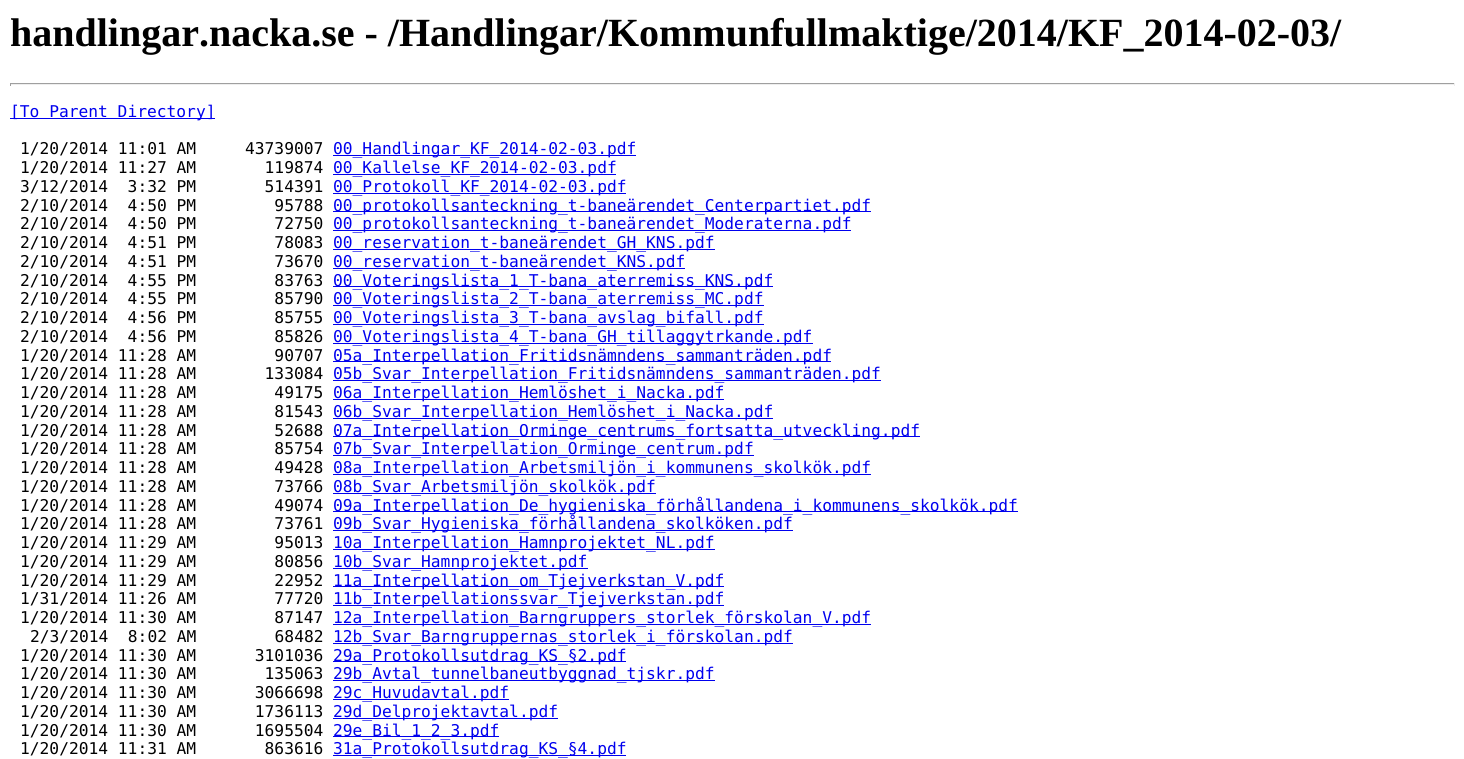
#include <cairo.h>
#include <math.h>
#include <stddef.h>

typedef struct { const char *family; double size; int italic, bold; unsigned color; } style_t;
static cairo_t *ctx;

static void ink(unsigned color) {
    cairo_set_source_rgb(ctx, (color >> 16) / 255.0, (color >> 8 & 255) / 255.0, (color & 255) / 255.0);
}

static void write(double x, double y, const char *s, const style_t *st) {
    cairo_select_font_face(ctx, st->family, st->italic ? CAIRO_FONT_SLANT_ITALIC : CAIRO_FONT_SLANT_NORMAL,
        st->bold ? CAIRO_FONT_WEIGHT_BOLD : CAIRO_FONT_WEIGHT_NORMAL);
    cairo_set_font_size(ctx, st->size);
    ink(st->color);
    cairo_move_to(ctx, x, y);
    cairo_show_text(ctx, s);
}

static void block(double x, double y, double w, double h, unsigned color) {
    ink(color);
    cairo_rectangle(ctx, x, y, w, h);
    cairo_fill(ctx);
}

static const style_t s1 = {"Liberation Serif", 40, 0, 1, 0x000000};
static const style_t s2 = {"DejaVu Sans Mono", 16.25, 0, 0, 0x0000ee};
static const style_t s3 = {"DejaVu Sans Mono", 16.25, 0, 0, 0x000000};

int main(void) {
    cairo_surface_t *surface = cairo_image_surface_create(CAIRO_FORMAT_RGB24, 1464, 759);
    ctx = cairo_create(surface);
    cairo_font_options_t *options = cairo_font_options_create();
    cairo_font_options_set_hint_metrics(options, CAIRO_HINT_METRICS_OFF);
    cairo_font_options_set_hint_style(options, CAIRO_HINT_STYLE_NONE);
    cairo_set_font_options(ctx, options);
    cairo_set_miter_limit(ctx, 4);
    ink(0xffffff);
    cairo_paint(ctx);
    write(10, 46, "handlingar.nacka.se - /Handlingar/Kommunfullmaktige/2014/KF_2014-02-03/", &s1);
    block(10, 83, 1445, 1, 0x9f9f9f);
    block(1454, 83, 1, 3, 0xeeeeee);
    block(10, 84, 1445, 1, 0xeeeeee);
    block(10, 83, 1, 3, 0x9f9f9f);
    block(10, 118, 205, 1, 0x0000ee);
    write(10, 117, "[To Parent Directory]", &s2);
    write(20, 154, "1/20/2014 11:01 AM     43739007", &s3);
    block(333, 155, 303, 1, 0x0000ee);
    write(333, 154, "00_Handlingar_KF_2014-02-03.pdf", &s2);
    write(20, 173, "1/20/2014 11:27 AM       119874", &s3);
    block(333, 174, 283, 1, 0x0000ee);
    write(333, 173, "00_Kallelse_KF_2014-02-03.pdf", &s2);
    write(20, 192, "3/12/2014  3:32 PM       514391", &s3);
    block(333, 193, 293, 1, 0x0000ee);
    write(333, 192, "00_Protokoll_KF_2014-02-03.pdf", &s2);
    write(20, 211, "2/10/2014  4:50 PM        95788", &s3);
    block(333, 211, 538, 1, 0x0000ee);
    write(333, 211, "00_protokollsanteckning_t-baneärendet_Centerpartiet.pdf", &s2);
    write(20, 229, "2/10/2014  4:50 PM        72750", &s3);
    block(333, 230, 518, 1, 0x0000ee);
    write(333, 229, "00_protokollsanteckning_t-baneärendet_Moderaterna.pdf", &s2);
    write(20, 248, "2/10/2014  4:51 PM        78083", &s3);
    block(333, 249, 382, 1, 0x0000ee);
    write(333, 248, "00_reservation_t-baneärendet_GH_KNS.pdf", &s2);
    write(20, 267, "2/10/2014  4:51 PM        73670", &s3);
    block(333, 268, 352, 1, 0x0000ee);
    write(333, 267, "00_reservation_t-baneärendet_KNS.pdf", &s2);
    write(20, 286, "2/10/2014  4:55 PM        83763", &s3);
    block(333, 286, 440, 1, 0x0000ee);
    write(333, 286, "00_Voteringslista_1_T-bana_aterremiss_KNS.pdf", &s2);
    write(20, 304, "2/10/2014  4:55 PM        85790", &s3);
    block(333, 305, 431, 1, 0x0000ee);
    write(333, 304, "00_Voteringslista_2_T-bana_aterremiss_MC.pdf", &s2);
    write(20, 323, "2/10/2014  4:56 PM        85755", &s3);
    block(333, 324, 431, 1, 0x0000ee);
    write(333, 323, "00_Voteringslista_3_T-bana_avslag_bifall.pdf", &s2);
    write(20, 342, "2/10/2014  4:56 PM        85826", &s3);
    block(333, 343, 480, 1, 0x0000ee);
    write(333, 342, "00_Voteringslista_4_T-bana_GH_tillaggytrkande.pdf", &s2);
    write(20, 361, "1/20/2014 11:28 AM        90707", &s3);
    block(333, 361, 498, 1, 0x0000ee);
    write(333, 361, "05a_Interpellation_Fritidsnämndens_sammanträden.pdf", &s2);
    write(20, 379, "1/20/2014 11:28 AM       133084", &s3);
    block(333, 380, 548, 1, 0x0000ee);
    write(333, 379, "05b_Svar_Interpellation_Fritidsnämndens_sammanträden.pdf", &s2);
    write(20, 398, "1/20/2014 11:28 AM        49175", &s3);
    block(333, 399, 391, 1, 0x0000ee);
    write(333, 398, "06a_Interpellation_Hemlöshet_i_Nacka.pdf", &s2);
    write(20, 417, "1/20/2014 11:28 AM        81543", &s3);
    block(333, 418, 440, 1, 0x0000ee);
    write(333, 417, "06b_Svar_Interpellation_Hemlöshet_i_Nacka.pdf", &s2);
    write(20, 436, "1/20/2014 11:28 AM        52688", &s3);
    block(333, 436, 587, 1, 0x0000ee);
    write(333, 436, "07a_Interpellation_Orminge_centrums_fortsatta_utveckling.pdf", &s2);
    write(20, 454, "1/20/2014 11:28 AM        85754", &s3);
    block(333, 455, 421, 1, 0x0000ee);
    write(333, 454, "07b_Svar_Interpellation_Orminge_centrum.pdf", &s2);
    write(20, 473, "1/20/2014 11:28 AM        49428", &s3);
    block(333, 474, 538, 1, 0x0000ee);
    write(333, 473, "08a_Interpellation_Arbetsmiljön_i_kommunens_skolkök.pdf", &s2);
    write(20, 492, "1/20/2014 11:28 AM        73766", &s3);
    block(333, 493, 323, 1, 0x0000ee);
    write(333, 492, "08b_Svar_Arbetsmiljön_skolkök.pdf", &s2);
    write(20, 511, "1/20/2014 11:28 AM        49074", &s3);
    block(333, 511, 685, 1, 0x0000ee);
    write(333, 511, "09a_Interpellation_De_hygieniska_förhållandena_i_kommunens_skolkök.pdf", &s2);
    write(20, 529, "1/20/2014 11:28 AM        73761", &s3);
    block(333, 530, 460, 1, 0x0000ee);
    write(333, 529, "09b_Svar_Hygieniska_förhållandena_skolköken.pdf", &s2);
    write(20, 548, "1/20/2014 11:29 AM        95013", &s3);
    block(333, 549, 382, 1, 0x0000ee);
    write(333, 548, "10a_Interpellation_Hamnprojektet_NL.pdf", &s2);
    write(20, 567, "1/20/2014 11:29 AM        80856", &s3);
    block(333, 568, 255, 1, 0x0000ee);
    write(333, 567, "10b_Svar_Hamnprojektet.pdf", &s2);
    write(20, 586, "1/20/2014 11:29 AM        22952", &s3);
    block(333, 586, 391, 1, 0x0000ee);
    write(333, 586, "11a_Interpellation_om_Tjejverkstan_V.pdf", &s2);
    write(20, 604, "1/31/2014 11:26 AM        77720", &s3);
    block(333, 605, 391, 1, 0x0000ee);
    write(333, 604, "11b_Interpellationssvar_Tjejverkstan.pdf", &s2);
    write(20, 623, "1/20/2014 11:30 AM        87147", &s3);
    block(333, 624, 538, 1, 0x0000ee);
    write(333, 623, "12a_Interpellation_Barngruppers_storlek_förskolan_V.pdf", &s2);
    write(30, 642, "2/3/2014  8:02 AM        68482", &s3);
    block(333, 643, 460, 1, 0x0000ee);
    write(333, 642, "12b_Svar_Barngruppernas_storlek_i_förskolan.pdf", &s2);
    write(20, 661, "1/20/2014 11:30 AM      3101036", &s3);
    block(333, 661, 293, 1, 0x0000ee);
    write(333, 661, "29a_Protokollsutdrag_KS_§2.pdf", &s2);
    write(20, 679, "1/20/2014 11:30 AM       135063", &s3);
    block(333, 680, 382, 1, 0x0000ee);
    write(333, 679, "29b_Avtal_tunnelbaneutbyggnad_tjskr.pdf", &s2);
    write(20, 698, "1/20/2014 11:30 AM      3066698", &s3);
    block(333, 699, 176, 1, 0x0000ee);
    write(333, 698, "29c_Huvudavtal.pdf", &s2);
    write(20, 717, "1/20/2014 11:30 AM      1736113", &s3);
    block(333, 718, 225, 1, 0x0000ee);
    write(333, 717, "29d_Delprojektavtal.pdf", &s2);
    write(20, 736, "1/20/2014 11:30 AM      1695504", &s3);
    block(333, 736, 166, 1, 0x0000ee);
    write(333, 736, "29e_Bil_1_2_3.pdf", &s2);
    write(20, 754, "1/20/2014 11:31 AM       863616", &s3);
    block(333, 755, 293, 1, 0x0000ee);
    write(333, 754, "31a_Protokollsutdrag_KS_§4.pdf", &s2);
    cairo_surface_write_to_png(surface, "screenshot.png");
    cairo_font_options_destroy(options);
    cairo_destroy(ctx);
    cairo_surface_destroy(surface);
    return 0;
}
